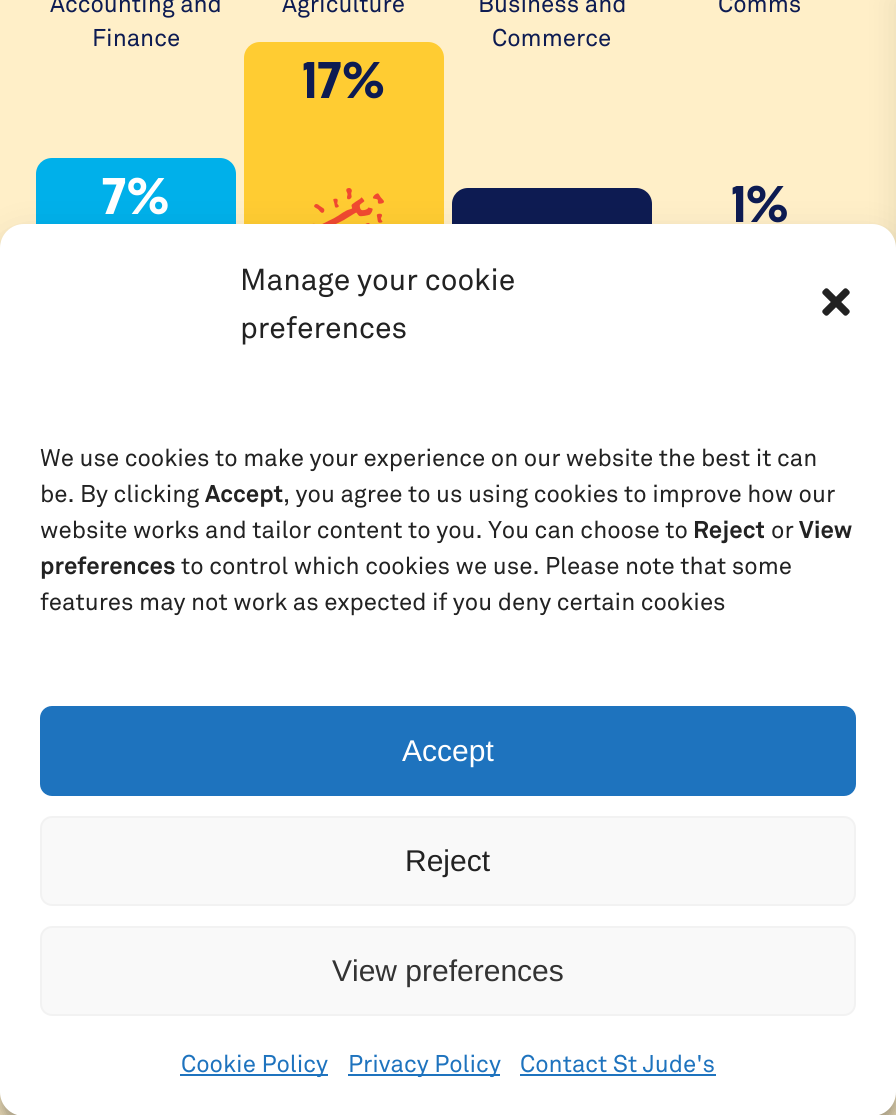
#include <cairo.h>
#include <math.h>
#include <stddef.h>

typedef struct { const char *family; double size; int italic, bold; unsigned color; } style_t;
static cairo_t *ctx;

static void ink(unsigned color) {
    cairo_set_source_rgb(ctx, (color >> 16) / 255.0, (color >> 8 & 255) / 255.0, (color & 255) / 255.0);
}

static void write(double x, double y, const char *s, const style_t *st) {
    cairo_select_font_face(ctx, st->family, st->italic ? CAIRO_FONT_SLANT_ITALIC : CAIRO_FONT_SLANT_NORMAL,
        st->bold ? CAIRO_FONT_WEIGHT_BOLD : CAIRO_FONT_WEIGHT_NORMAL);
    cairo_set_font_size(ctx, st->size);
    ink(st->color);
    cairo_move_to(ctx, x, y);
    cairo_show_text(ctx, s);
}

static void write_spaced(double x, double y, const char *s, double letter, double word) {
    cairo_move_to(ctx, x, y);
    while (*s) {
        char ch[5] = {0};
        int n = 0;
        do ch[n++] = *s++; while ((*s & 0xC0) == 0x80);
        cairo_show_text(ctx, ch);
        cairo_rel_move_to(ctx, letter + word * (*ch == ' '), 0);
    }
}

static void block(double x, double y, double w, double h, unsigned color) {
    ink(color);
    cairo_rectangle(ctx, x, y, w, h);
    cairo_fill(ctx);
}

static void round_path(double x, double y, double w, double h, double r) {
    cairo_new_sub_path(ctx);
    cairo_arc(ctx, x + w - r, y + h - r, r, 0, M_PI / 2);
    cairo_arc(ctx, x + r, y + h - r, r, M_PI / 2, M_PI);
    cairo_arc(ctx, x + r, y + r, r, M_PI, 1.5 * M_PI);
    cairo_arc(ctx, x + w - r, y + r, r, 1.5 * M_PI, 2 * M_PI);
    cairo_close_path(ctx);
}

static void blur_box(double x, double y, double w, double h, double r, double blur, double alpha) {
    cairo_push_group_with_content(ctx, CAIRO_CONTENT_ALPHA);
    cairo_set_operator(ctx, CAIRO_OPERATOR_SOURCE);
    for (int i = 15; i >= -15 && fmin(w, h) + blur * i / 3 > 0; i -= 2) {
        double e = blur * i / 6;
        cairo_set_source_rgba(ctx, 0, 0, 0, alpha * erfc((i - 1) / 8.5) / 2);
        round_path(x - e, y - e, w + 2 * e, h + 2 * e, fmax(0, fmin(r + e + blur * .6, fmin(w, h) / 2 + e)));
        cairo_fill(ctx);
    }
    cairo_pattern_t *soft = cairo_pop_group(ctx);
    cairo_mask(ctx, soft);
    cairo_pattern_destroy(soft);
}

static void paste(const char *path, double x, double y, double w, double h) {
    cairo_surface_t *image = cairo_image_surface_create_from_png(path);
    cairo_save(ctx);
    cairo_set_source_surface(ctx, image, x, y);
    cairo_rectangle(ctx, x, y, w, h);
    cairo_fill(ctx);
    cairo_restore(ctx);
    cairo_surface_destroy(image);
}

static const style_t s1 = {"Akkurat", 24, 0, 0, 0x0d1b52};
static const style_t s2 = {"Akkurat", 30, 0, 0, 0x222222};
static const style_t s3 = {"Akkurat", 24, 0, 0, 0x222222};
static const style_t s4 = {"Akkurat", 24, 0, 1, 0x222222};
static const style_t s5 = {"Liberation Sans", 30, 0, 0, 0xffffff};
static const style_t s6 = {"Liberation Sans", 30, 0, 0, 0x222222};
static const style_t s7 = {"Liberation Sans", 30, 0, 0, 0x333333};
static const style_t s8 = {"Akkurat", 24, 0, 0, 0x1e73be};

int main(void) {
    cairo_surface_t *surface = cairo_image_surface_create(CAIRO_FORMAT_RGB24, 896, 1115);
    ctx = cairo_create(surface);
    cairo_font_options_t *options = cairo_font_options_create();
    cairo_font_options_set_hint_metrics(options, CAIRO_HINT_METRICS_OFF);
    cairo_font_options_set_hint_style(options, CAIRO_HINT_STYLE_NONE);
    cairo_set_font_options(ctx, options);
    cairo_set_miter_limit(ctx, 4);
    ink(0xffefc8);
    cairo_paint(ctx);
    write(50, 12, "Accounting and", &s1);
    write(92, 46, "Finance", &s1);
    write(282, 12, "Agriculture", &s1);
    write(478, 12, "Business and", &s1);
    write(492, 46, "Commerce", &s1);
    write(718, 12, "Comms", &s1);
    ink(0xffcc32);
    cairo_new_path(ctx);
    cairo_move_to(ctx, 260, 42);
    cairo_line_to(ctx, 428, 42);
    cairo_curve_to(ctx, 437, 42, 444, 49, 444, 58);
    cairo_line_to(ctx, 444, 278);
    cairo_line_to(ctx, 244, 278);
    cairo_line_to(ctx, 244, 58);
    cairo_curve_to(ctx, 244, 49, 251, 42, 260, 42);
    cairo_close_path(ctx);
    cairo_fill(ctx);
    cairo_select_font_face(ctx, "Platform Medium", CAIRO_FONT_SLANT_NORMAL, CAIRO_FONT_WEIGHT_NORMAL);
    cairo_set_font_size(ctx, 52);
    ink(0x0d1b52);
    write_spaced(303, 98, "17%", 1, 0);
    paste("pic1.png", 312, 188, 72, 36);
    ink(0x00b0ea);
    cairo_new_path(ctx);
    cairo_move_to(ctx, 52, 158);
    cairo_line_to(ctx, 220, 158);
    cairo_curve_to(ctx, 229, 158, 236, 165, 236, 174);
    cairo_line_to(ctx, 236, 278);
    cairo_line_to(ctx, 36, 278);
    cairo_line_to(ctx, 36, 174);
    cairo_curve_to(ctx, 36, 165, 43, 158, 52, 158);
    cairo_close_path(ctx);
    cairo_fill(ctx);
    ink(0xffffff);
    write_spaced(102, 214, "7%", 1, 0);
    ink(0x0d1b52);
    cairo_new_path(ctx);
    cairo_move_to(ctx, 468, 188);
    cairo_line_to(ctx, 636, 188);
    cairo_curve_to(ctx, 645, 188, 652, 195, 652, 204);
    cairo_line_to(ctx, 652, 278);
    cairo_line_to(ctx, 452, 278);
    cairo_line_to(ctx, 452, 204);
    cairo_curve_to(ctx, 452, 195, 459, 188, 468, 188);
    cairo_close_path(ctx);
    cairo_fill(ctx);
    write_spaced(732, 222, "1%", 1, 0);
    ink(0x000000);
    blur_box(896, 0, 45, 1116, 0, 15, 0.1);
    blur_box(0, 236, 896, 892, 24, 6, 0.23);
    blur_box(0, 244, 896, 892, 24, 20, 0.19);
    ink(0xffffff);
    round_path(0, 224, 896, 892, 24);
    cairo_fill(ctx);
    write(240, 290, "Manage your cookie", &s2);
    write(240, 338, "preferences", &s2);
    paste("pic2.png", 822, 288, 28, 28);
    write(40, 466, "We use cookies to make your experience on our website the best it can", &s3);
    write(40, 502, "be. By clicking", &s3);
    write(205, 502, "Accept", &s4);
    write(283, 502, ", you agree to us using cookies to improve how our", &s3);
    write(40, 538, "website works and tailor content to you. You can choose to", &s3);
    write(693, 538, "Reject", &s4);
    write(771, 538, "or", &s3);
    write(799, 538, "View", &s4);
    write(40, 574, "preferences", &s4);
    write(181, 574, "to control which cookies we use. Please note that some", &s3);
    write(40, 610, "features may not work as expected if you deny certain cookies", &s3);
    ink(0x1e73be);
    round_path(41, 707, 814, 88, 11);
    cairo_fill_preserve(ctx);
    cairo_stroke(ctx);
    write(402, 761, "Accept", &s5);
    ink(0xf9f9f9);
    round_path(41, 817, 814, 88, 11);
    cairo_fill_preserve(ctx);
    ink(0xf2f2f2);
    cairo_stroke(ctx);
    write(405, 871, "Reject", &s6);
    ink(0xf9f9f9);
    round_path(41, 927, 814, 88, 11);
    cairo_fill_preserve(ctx);
    ink(0xf2f2f2);
    cairo_stroke(ctx);
    write(332, 981, "View preferences", &s7);
    block(180, 1074, 148, 2, 0x1e73be);
    write(181, 1072, "Cookie Policy", &s8);
    block(348, 1074, 152, 2, 0x1e73be);
    write(348, 1072, "Privacy Policy", &s8);
    write(520, 1072, "Contact St Jude's", &s8);
    block(520, 1074, 196, 2, 0x1e73be);
    cairo_surface_write_to_png(surface, "screenshot.png");
    cairo_font_options_destroy(options);
    cairo_destroy(ctx);
    cairo_surface_destroy(surface);
    return 0;
}
